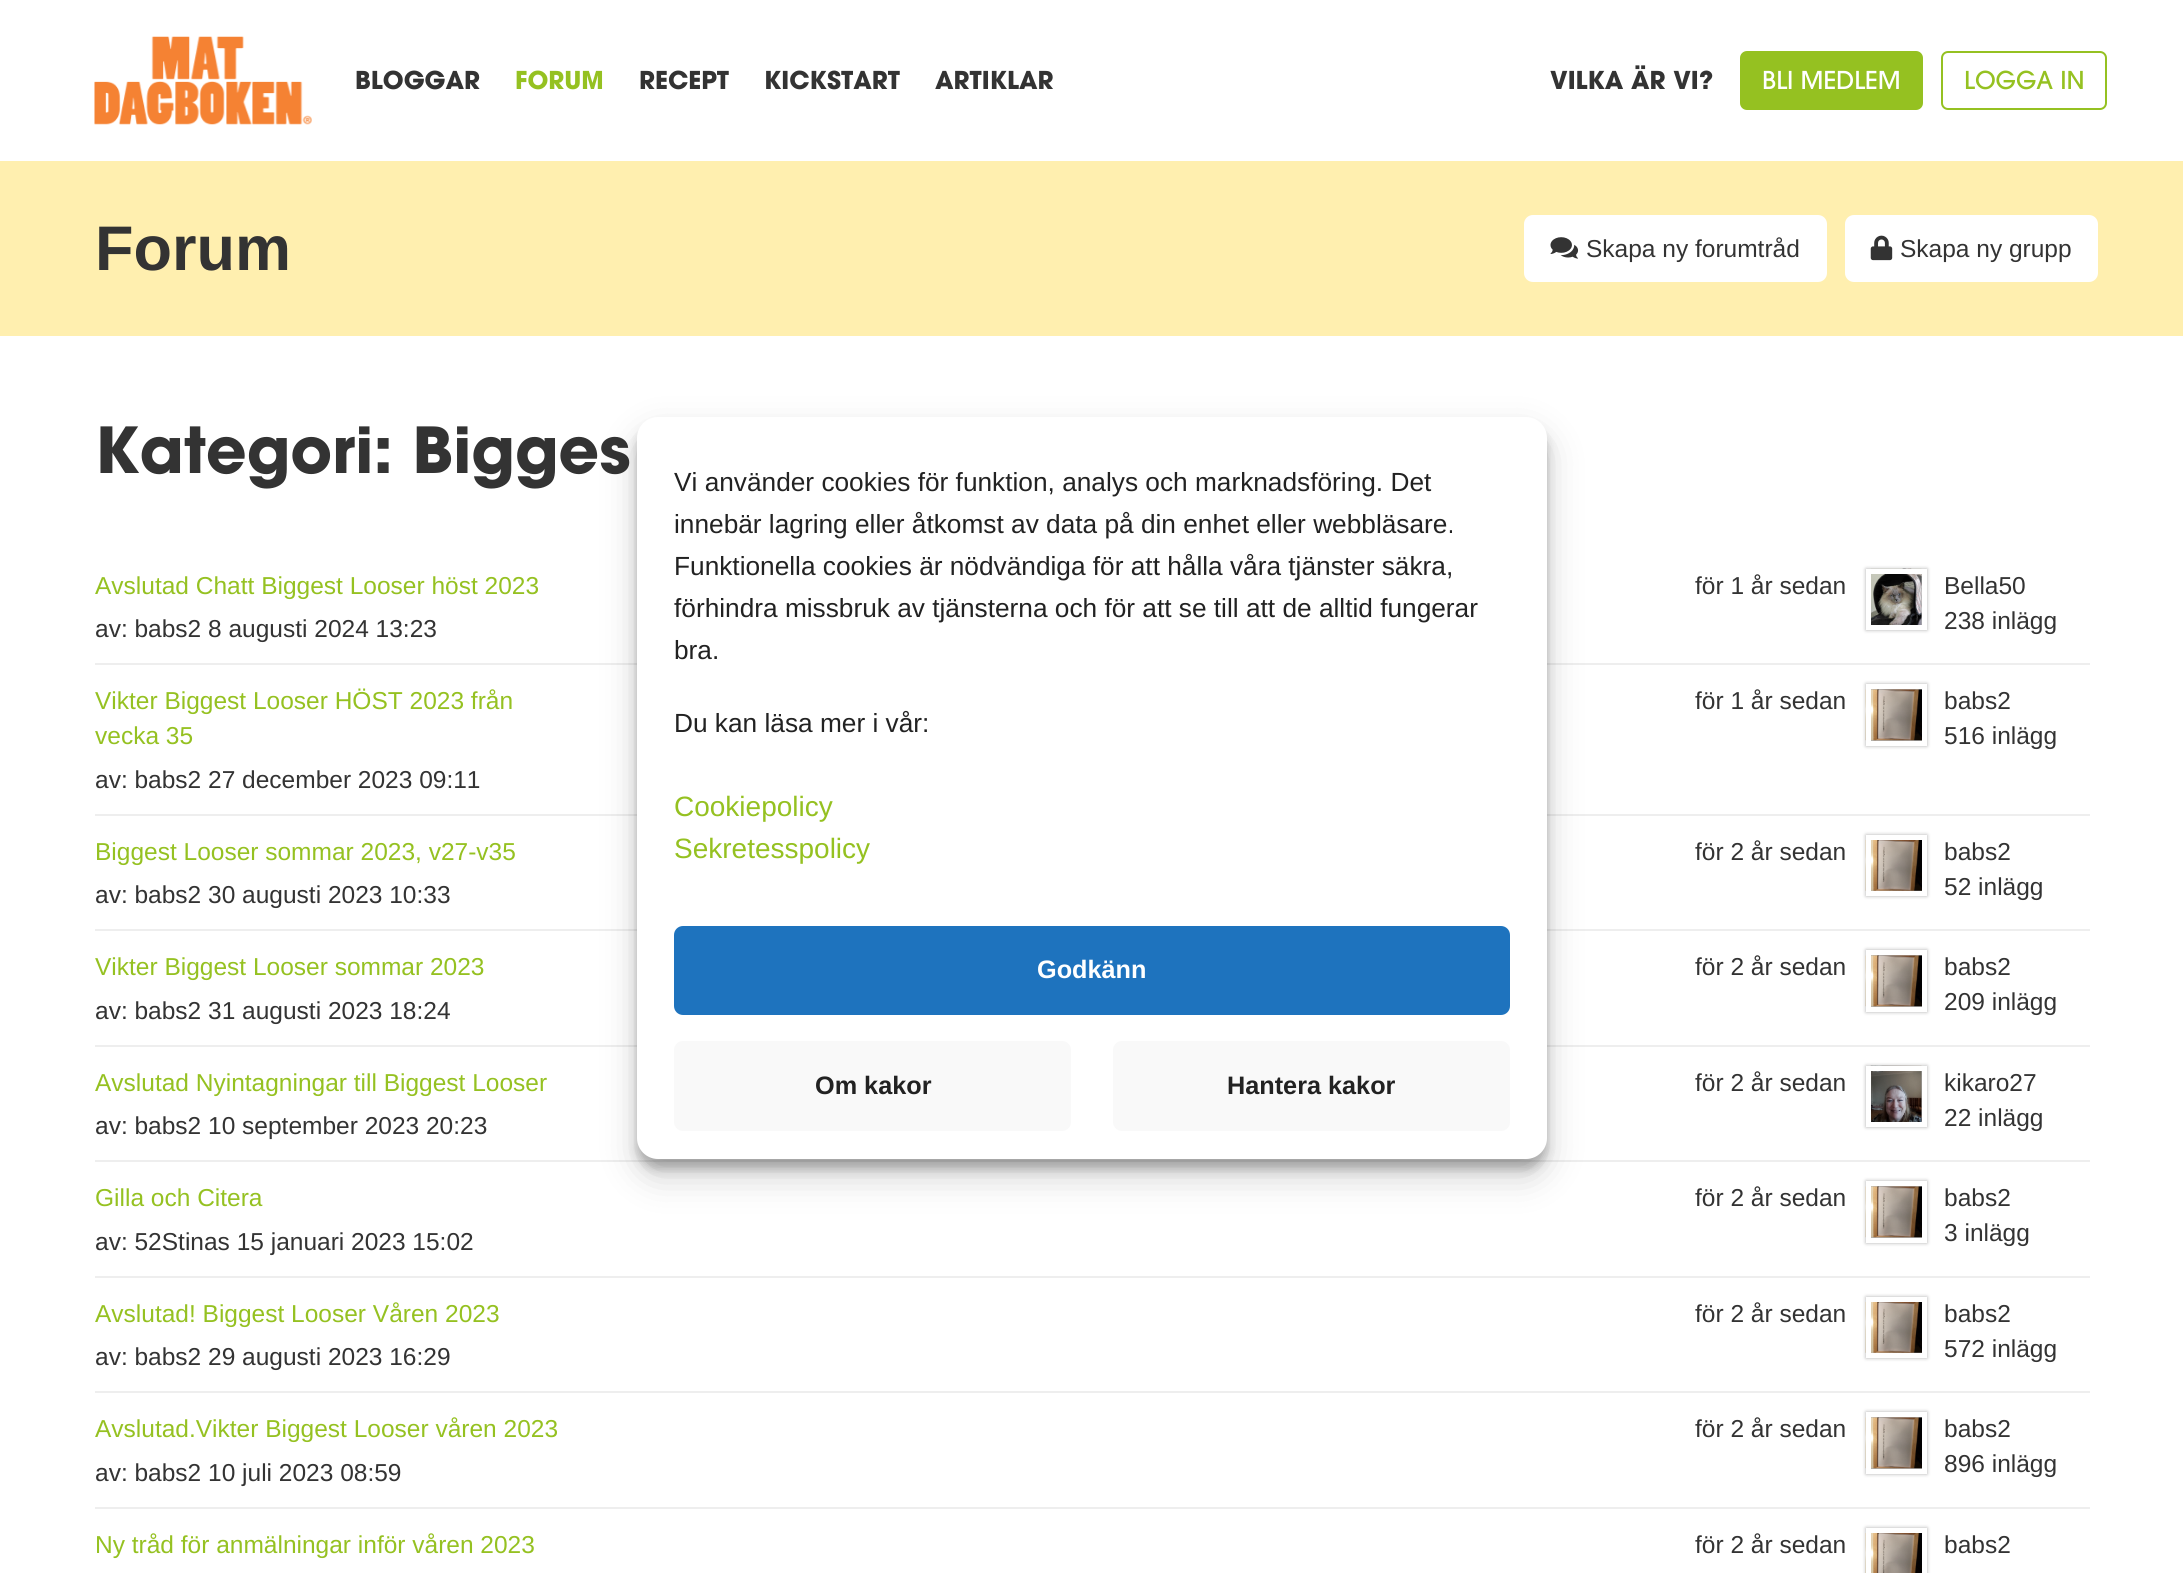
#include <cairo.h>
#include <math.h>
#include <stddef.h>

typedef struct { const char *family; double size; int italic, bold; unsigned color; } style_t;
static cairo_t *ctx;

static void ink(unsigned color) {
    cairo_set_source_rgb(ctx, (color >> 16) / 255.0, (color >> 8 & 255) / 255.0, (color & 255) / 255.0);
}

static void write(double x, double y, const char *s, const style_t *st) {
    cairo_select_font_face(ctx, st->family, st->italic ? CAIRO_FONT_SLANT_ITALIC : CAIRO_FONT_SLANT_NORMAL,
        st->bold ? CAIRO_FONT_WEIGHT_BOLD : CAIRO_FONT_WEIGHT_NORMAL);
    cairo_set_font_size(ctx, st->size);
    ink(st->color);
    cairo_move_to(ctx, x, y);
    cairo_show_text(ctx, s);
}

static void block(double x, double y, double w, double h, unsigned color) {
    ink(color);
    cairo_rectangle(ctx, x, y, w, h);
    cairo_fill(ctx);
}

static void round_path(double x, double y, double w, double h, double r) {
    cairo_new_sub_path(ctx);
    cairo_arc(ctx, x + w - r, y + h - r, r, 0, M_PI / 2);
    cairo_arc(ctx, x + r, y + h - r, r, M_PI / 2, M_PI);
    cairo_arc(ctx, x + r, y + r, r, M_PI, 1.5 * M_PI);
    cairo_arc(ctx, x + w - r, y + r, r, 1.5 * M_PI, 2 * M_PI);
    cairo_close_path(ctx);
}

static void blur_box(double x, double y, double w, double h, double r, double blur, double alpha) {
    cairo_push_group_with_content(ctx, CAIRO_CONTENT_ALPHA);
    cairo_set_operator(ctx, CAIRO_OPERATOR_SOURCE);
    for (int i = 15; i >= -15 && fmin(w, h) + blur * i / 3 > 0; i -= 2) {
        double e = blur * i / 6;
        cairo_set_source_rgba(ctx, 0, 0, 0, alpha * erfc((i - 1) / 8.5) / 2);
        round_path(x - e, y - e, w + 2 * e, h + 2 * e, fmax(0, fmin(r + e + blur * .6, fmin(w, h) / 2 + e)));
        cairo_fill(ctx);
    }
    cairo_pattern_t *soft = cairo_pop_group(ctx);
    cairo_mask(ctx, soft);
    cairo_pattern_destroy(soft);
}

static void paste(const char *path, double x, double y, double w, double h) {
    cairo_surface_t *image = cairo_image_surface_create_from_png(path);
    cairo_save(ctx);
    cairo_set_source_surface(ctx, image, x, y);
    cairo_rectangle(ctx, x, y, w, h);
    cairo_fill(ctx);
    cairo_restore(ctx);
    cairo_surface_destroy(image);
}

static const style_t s1 = {"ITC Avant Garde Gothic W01", 24.5, 0, 1, 0x333333};
static const style_t s2 = {"ITC Avant Garde Gothic W01", 24.5, 0, 1, 0x95c121};
static const style_t s3 = {"ITC Avant Garde Gothic W01 Medium", 24.5, 0, 0, 0xffffff};
static const style_t s4 = {"ITC Avant Garde Gothic W01 Medium", 24.5, 0, 0, 0x95c121};
static const style_t s5 = {"Liberation Sans", 63, 0, 1, 0x333333};
static const style_t s6 = {"Liberation Sans", 24.5, 0, 0, 0x333333};
static const style_t s7 = {"ITC Avant Garde Gothic W01", 63, 0, 1, 0x333333};
static const style_t s8 = {"Liberation Sans", 24.5, 0, 0, 0x95c121};
static const style_t s9 = {"Liberation Sans", 26.25, 0, 0, 0x222222};
static const style_t s10 = {"Liberation Sans", 28, 0, 0, 0x95c121};
static const style_t s11 = {"Liberation Sans", 25.25, 0, 1, 0xffffff};
static const style_t s12 = {"Liberation Sans", 25.25, 0, 1, 0x222222};

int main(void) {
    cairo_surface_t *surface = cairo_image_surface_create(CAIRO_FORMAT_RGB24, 2183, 1573);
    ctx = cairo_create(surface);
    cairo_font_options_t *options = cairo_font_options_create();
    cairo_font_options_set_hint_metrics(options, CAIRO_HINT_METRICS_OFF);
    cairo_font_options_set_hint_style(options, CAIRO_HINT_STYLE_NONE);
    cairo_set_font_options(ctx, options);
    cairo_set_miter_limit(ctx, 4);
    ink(0xffffff);
    cairo_paint(ctx);
    paste("pic1.png", 94, 36, 218, 89);
    write(355, 89, "BLOGGAR", &s1);
    write(515, 89, "FORUM", &s2);
    write(639, 89, "RECEPT", &s1);
    write(764, 89, "KICKSTART", &s1);
    write(935, 89, "ARTIKLAR", &s1);
    write(1550, 89, "VILKA ÄR VI?", &s1);
    ink(0x95c121);
    round_path(1741, 52, 181, 57, 6);
    cairo_fill_preserve(ctx);
    cairo_stroke(ctx);
    write(1762, 89, "BLI MEDLEM", &s3);
    round_path(1942, 52, 164, 57, 6);
    ink(0x95c121);
    cairo_stroke(ctx);
    write(1964, 89, "LOGGA IN", &s4);
    block(0, 161, 2183, 175, 0xffefaf);
    write(95, 270, "Forum", &s5);
    ink(0xffffff);
    round_path(1524, 215, 303, 67, 9);
    cairo_fill(ctx);
    paste("pic2.png", 1550, 237, 29, 22);
    write(1586, 257, "Skapa ny forumtråd", &s6);
    ink(0xffffff);
    round_path(1845, 215, 253, 67, 9);
    cairo_fill(ctx);
    paste("pic3.png", 1870, 235, 23, 26);
    write(1900, 257, "Skapa ny grupp", &s6);
    write(95, 473, "Kategori: Bigges", &s7);
    block(95, 663, 1995, 2, 0xeeeeee);
    write(95, 594, "Avslutad Chatt Biggest Looser höst 2023", &s8);
    write(1695, 594, "för 1 år sedan", &s6);
    ink(0x000000);
    blur_box(1866, 569, 61, 61, 0, 2, 0.32);
    paste("pic4.png", 1870, 568, 52, 57);
    cairo_rectangle(ctx, 1868.5, 571.5, 56, 56);
    ink(0xffffff);
    cairo_set_line_width(ctx, 5);
    cairo_stroke(ctx);
    write(1944, 594, "Bella50", &s6);
    write(1944, 629, "238 inlägg", &s6);
    write(95, 637, "av: babs2 8 augusti 2024 13:23", &s6);
    block(95, 814, 1995, 2, 0xeeeeee);
    write(95, 709, "Vikter Biggest Looser HÖST 2023 från", &s8);
    write(95, 744, "vecka 35", &s8);
    write(1695, 709, "för 1 år sedan", &s6);
    ink(0x000000);
    blur_box(1866, 684, 61, 62, 0, 2, 0.32);
    paste("pic5.png", 1865, 689, 57, 52);
    cairo_rectangle(ctx, 1868.5, 686.5, 56, 57);
    ink(0xffffff);
    cairo_stroke(ctx);
    write(1944, 709, "babs2", &s6);
    write(1944, 744, "516 inlägg", &s6);
    write(95, 788, "av: babs2 27 december 2023 09:11", &s6);
    block(95, 929, 1995, 2, 0xeeeeee);
    write(95, 860, "Biggest Looser sommar 2023, v27-v35", &s8);
    write(1695, 860, "för 2 år sedan", &s6);
    ink(0x000000);
    blur_box(1866, 835, 61, 61, 0, 2, 0.32);
    paste("pic6.png", 1865, 840, 57, 51);
    cairo_rectangle(ctx, 1868.5, 837.5, 56, 56);
    ink(0xffffff);
    cairo_stroke(ctx);
    write(1944, 860, "babs2", &s6);
    write(1944, 895, "52 inlägg", &s6);
    write(95, 903, "av: babs2 30 augusti 2023 10:33", &s6);
    block(95, 1045, 1995, 2, 0xeeeeee);
    write(95, 975, "Vikter Biggest Looser sommar 2023", &s8);
    write(1695, 975, "för 2 år sedan", &s6);
    ink(0x000000);
    blur_box(1866, 950, 61, 62, 0, 2, 0.32);
    paste("pic5.png", 1865, 955, 57, 52);
    cairo_rectangle(ctx, 1868.5, 952.5, 56, 57);
    ink(0xffffff);
    cairo_stroke(ctx);
    write(1944, 975, "babs2", &s6);
    write(1944, 1010, "209 inlägg", &s6);
    write(95, 1019, "av: babs2 31 augusti 2023 18:24", &s6);
    block(95, 1160, 1995, 2, 0xeeeeee);
    write(95, 1091, "Avslutad Nyintagningar till Biggest Looser", &s8);
    write(1695, 1091, "för 2 år sedan", &s6);
    ink(0x000000);
    blur_box(1866, 1066, 61, 61, 0, 2, 0.32);
    paste("pic7.png", 1870, 1065, 52, 57);
    cairo_rectangle(ctx, 1868.5, 1068.5, 56, 56);
    ink(0xffffff);
    cairo_stroke(ctx);
    write(1944, 1091, "kikaro27", &s6);
    write(1944, 1126, "22 inlägg", &s6);
    write(95, 1134, "av: babs2 10 september 2023 20:23", &s6);
    block(95, 1276, 1995, 2, 0xeeeeee);
    write(95, 1206, "Gilla och Citera", &s8);
    write(1695, 1206, "för 2 år sedan", &s6);
    ink(0x000000);
    blur_box(1866, 1181, 61, 62, 0, 2, 0.32);
    paste("pic5.png", 1865, 1186, 57, 52);
    cairo_rectangle(ctx, 1868.5, 1183.5, 56, 57);
    ink(0xffffff);
    cairo_stroke(ctx);
    write(1944, 1206, "babs2", &s6);
    write(1944, 1241, "3 inlägg", &s6);
    write(95, 1250, "av: 52Stinas 15 januari 2023 15:02", &s6);
    block(95, 1391, 1995, 2, 0xeeeeee);
    write(95, 1322, "Avslutad! Biggest Looser Våren 2023", &s8);
    write(1695, 1322, "för 2 år sedan", &s6);
    ink(0x000000);
    blur_box(1866, 1297, 61, 61, 0, 2, 0.32);
    paste("pic6.png", 1865, 1302, 57, 51);
    cairo_rectangle(ctx, 1868.5, 1299.5, 56, 56);
    ink(0xffffff);
    cairo_stroke(ctx);
    write(1944, 1322, "babs2", &s6);
    write(1944, 1357, "572 inlägg", &s6);
    write(95, 1365, "av: babs2 29 augusti 2023 16:29", &s6);
    block(95, 1507, 1995, 2, 0xeeeeee);
    write(95, 1437, "Avslutad.Vikter Biggest Looser våren 2023", &s8);
    write(1695, 1437, "för 2 år sedan", &s6);
    ink(0x000000);
    blur_box(1866, 1412, 61, 62, 0, 2, 0.32);
    paste("pic5.png", 1865, 1417, 57, 52);
    cairo_rectangle(ctx, 1868.5, 1414.5, 56, 57);
    ink(0xffffff);
    cairo_stroke(ctx);
    write(1944, 1437, "babs2", &s6);
    write(1944, 1472, "896 inlägg", &s6);
    write(95, 1481, "av: babs2 10 juli 2023 08:59", &s6);
    write(95, 1553, "Ny tråd för anmälningar inför våren 2023", &s8);
    write(1695, 1553, "för 2 år sedan", &s6);
    ink(0x000000);
    blur_box(1866, 1528, 61, 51, 0, 2, 0.32);
    paste("pic8.png", 1865, 1533, 57, 40);
    cairo_rectangle(ctx, 1868.5, 1530.5, 56, 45);
    ink(0xffffff);
    cairo_stroke(ctx);
    write(1944, 1553, "babs2", &s6);
    ink(0x000000);
    blur_box(637, 427, 910, 742, 21, 5, 0.23);
    blur_box(637, 434, 910, 742, 21, 17.5, 0.19);
    ink(0xffffff);
    round_path(638, 418, 908, 740, 20);
    cairo_fill_preserve(ctx);
    cairo_set_line_width(ctx, 2);
    cairo_stroke(ctx);
    write(674, 491, "Vi använder cookies för funktion, analys och marknadsföring. Det", &s9);
    write(674, 533, "innebär lagring eller åtkomst av data på din enhet eller webbläsare.", &s9);
    write(674, 575, "Funktionella cookies är nödvändiga för att hålla våra tjänster säkra,", &s9);
    write(674, 617, "förhindra missbruk av tjänsterna och för att se till att de alltid fungerar", &s9);
    write(674, 659, "bra.", &s9);
    write(674, 732, "Du kan läsa mer i vår:", &s9);
    write(674, 816, "Cookiepolicy", &s10);
    write(674, 858, "Sekretesspolicy", &s10);
    ink(0x1e73be);
    round_path(676, 928, 832, 85, 7);
    cairo_fill_preserve(ctx);
    cairo_set_line_width(ctx, 4);
    cairo_stroke(ctx);
    write(1037, 978, "Godkänn", &s11);
    ink(0xf9f9f9);
    round_path(674, 1041, 397, 90, 9);
    cairo_fill(ctx);
    write(815, 1094, "Om kakor", &s12);
    ink(0xf9f9f9);
    round_path(1113, 1041, 397, 90, 9);
    cairo_fill(ctx);
    write(1227, 1094, "Hantera kakor", &s12);
    cairo_surface_write_to_png(surface, "screenshot.png");
    cairo_font_options_destroy(options);
    cairo_destroy(ctx);
    cairo_surface_destroy(surface);
    return 0;
}
